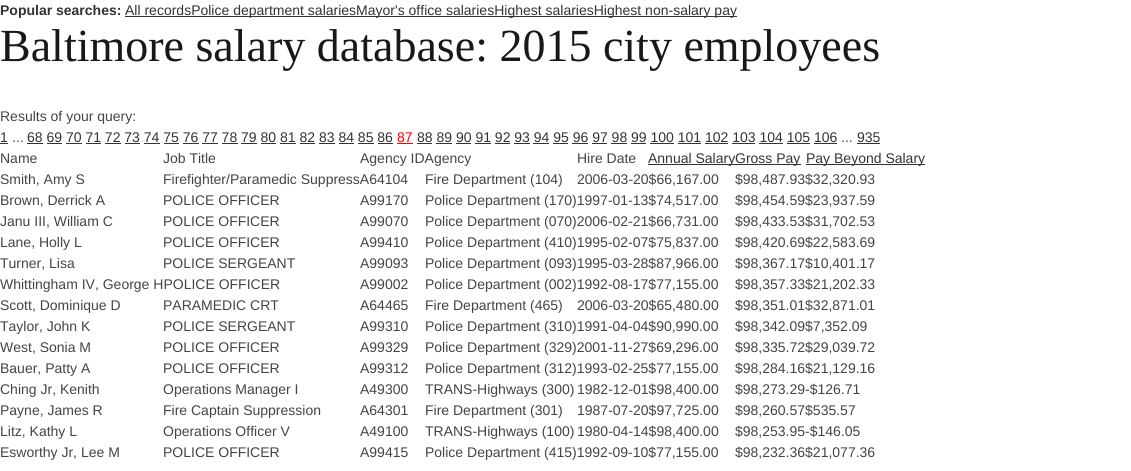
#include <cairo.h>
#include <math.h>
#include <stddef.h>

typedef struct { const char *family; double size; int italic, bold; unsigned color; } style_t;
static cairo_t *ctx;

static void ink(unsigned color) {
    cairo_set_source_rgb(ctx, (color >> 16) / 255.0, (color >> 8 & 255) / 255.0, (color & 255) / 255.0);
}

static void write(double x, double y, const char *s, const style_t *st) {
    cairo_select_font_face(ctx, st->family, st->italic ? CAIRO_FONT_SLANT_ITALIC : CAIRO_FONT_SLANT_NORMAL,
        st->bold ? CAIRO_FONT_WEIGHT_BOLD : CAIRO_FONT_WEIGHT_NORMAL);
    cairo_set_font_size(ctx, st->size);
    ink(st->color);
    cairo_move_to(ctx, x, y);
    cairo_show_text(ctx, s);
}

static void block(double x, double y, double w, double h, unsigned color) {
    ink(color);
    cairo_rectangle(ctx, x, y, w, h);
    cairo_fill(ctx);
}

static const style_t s1 = {"Liberation Sans", 14, 0, 1, 0x333333};
static const style_t s2 = {"Liberation Sans", 14, 0, 0, 0x333333};
static const style_t s3 = {"Liberation Serif", 46, 0, 0, 0x181818};
static const style_t s4 = {"Liberation Sans", 14, 0, 0, 0x444444};
static const style_t s5 = {"Liberation Sans", 14, 0, 0, 0xff0000};

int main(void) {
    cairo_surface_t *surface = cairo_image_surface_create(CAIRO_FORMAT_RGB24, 1131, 471);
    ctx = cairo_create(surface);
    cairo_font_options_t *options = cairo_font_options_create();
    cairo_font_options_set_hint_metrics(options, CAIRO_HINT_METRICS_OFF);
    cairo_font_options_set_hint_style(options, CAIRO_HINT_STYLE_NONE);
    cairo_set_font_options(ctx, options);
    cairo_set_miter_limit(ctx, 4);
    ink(0xffffff);
    cairo_paint(ctx);
    write(0, 15, "Popular searches:", &s1);
    block(125, 16, 612, 1, 0x333333);
    write(125, 15, "All recordsPolice department salariesMayor's office salariesHighest salariesHighest non-salary pay", &s2);
    write(0, 61, "Baltimore salary database: 2015 city employees", &s3);
    write(0, 121, "Results of your query:", &s4);
    write(0, 142, "1", &s2);
    block(0, 143, 8, 1, 0x333333);
    write(12, 142, "...", &s4);
    write(27, 142, "68 69 70 71 72 73 74 75 76 77 78 79 80 81 82 83 84 85 86", &s2);
    block(27, 143, 16, 1, 0x333333);
    write(397, 142, "87", &s5);
    block(397, 143, 16, 1, 0xff0000);
    write(417, 142, "88 89 90 91 92 93 94 95 96 97 98 99 100 101 102 103 104 105 106", &s2);
    block(417, 143, 15, 1, 0x333333);
    write(841, 142, "...", &s4);
    write(857, 142, "935", &s2);
    block(857, 143, 23, 1, 0x333333);
    block(47, 143, 15, 1, 0x333333);
    block(66, 143, 16, 1, 0x333333);
    block(86, 143, 15, 1, 0x333333);
    block(105, 143, 16, 1, 0x333333);
    block(125, 143, 15, 1, 0x333333);
    block(144, 143, 16, 1, 0x333333);
    block(164, 143, 15, 1, 0x333333);
    block(183, 143, 16, 1, 0x333333);
    block(202, 143, 16, 1, 0x333333);
    block(222, 143, 16, 1, 0x333333);
    block(241, 143, 16, 1, 0x333333);
    block(261, 143, 15, 1, 0x333333);
    block(280, 143, 16, 1, 0x333333);
    block(300, 143, 15, 1, 0x333333);
    block(319, 143, 16, 1, 0x333333);
    block(339, 143, 15, 1, 0x333333);
    block(358, 143, 16, 1, 0x333333);
    block(378, 143, 15, 1, 0x333333);
    block(436, 143, 16, 1, 0x333333);
    block(456, 143, 15, 1, 0x333333);
    block(475, 143, 16, 1, 0x333333);
    block(495, 143, 15, 1, 0x333333);
    block(514, 143, 16, 1, 0x333333);
    block(533, 143, 16, 1, 0x333333);
    block(553, 143, 15, 1, 0x333333);
    block(572, 143, 16, 1, 0x333333);
    block(592, 143, 15, 1, 0x333333);
    block(611, 143, 16, 1, 0x333333);
    block(631, 143, 15, 1, 0x333333);
    block(650, 143, 24, 1, 0x333333);
    block(678, 143, 23, 1, 0x333333);
    block(705, 143, 23, 1, 0x333333);
    block(732, 143, 23, 1, 0x333333);
    block(759, 143, 24, 1, 0x333333);
    block(787, 143, 23, 1, 0x333333);
    block(814, 143, 23, 1, 0x333333);
    write(0, 163, "Name", &s4);
    write(163, 163, "Job Title", &s4);
    write(360, 163, "Agency IDAgency", &s4);
    write(577, 163, "Hire Date", &s4);
    block(648, 164, 87, 1, 0x333333);
    write(648, 163, "Annual Salary", &s2);
    block(735, 164, 66, 1, 0x333333);
    write(735, 163, "Gross Pay", &s2);
    block(806, 164, 119, 1, 0x333333);
    write(806, 163, "Pay Beyond Salary", &s2);
    write(0, 184, "Smith, Amy S", &s4);
    write(163, 184, "Firefighter/Paramedic SuppressA64104", &s4);
    write(425, 184, "Fire Department (104)", &s4);
    write(577, 184, "2006-03-20$66,167.00", &s4);
    write(735, 184, "$98,487.93$32,320.93", &s4);
    write(0, 205, "Brown, Derrick A", &s4);
    write(163, 205, "POLICE OFFICER", &s4);
    write(360, 205, "A99170", &s4);
    write(425, 205, "Police Department (170)1997-01-13$74,517.00", &s4);
    write(735, 205, "$98,454.59$23,937.59", &s4);
    write(0, 226, "Janu III, William C", &s4);
    write(163, 226, "POLICE OFFICER", &s4);
    write(360, 226, "A99070", &s4);
    write(425, 226, "Police Department (070)2006-02-21$66,731.00", &s4);
    write(735, 226, "$98,433.53$31,702.53", &s4);
    write(0, 247, "Lane, Holly L", &s4);
    write(163, 247, "POLICE OFFICER", &s4);
    write(360, 247, "A99410", &s4);
    write(425, 247, "Police Department (410)1995-02-07$75,837.00", &s4);
    write(735, 247, "$98,420.69$22,583.69", &s4);
    write(0, 268, "Turner, Lisa", &s4);
    write(163, 268, "POLICE SERGEANT", &s4);
    write(360, 268, "A99093", &s4);
    write(425, 268, "Police Department (093)1995-03-28$87,966.00", &s4);
    write(735, 268, "$98,367.17$10,401.17", &s4);
    write(0, 289, "Whittingham IV, George HPOLICE OFFICER", &s4);
    write(360, 289, "A99002", &s4);
    write(425, 289, "Police Department (002)1992-08-17$77,155.00", &s4);
    write(735, 289, "$98,357.33$21,202.33", &s4);
    write(0, 310, "Scott, Dominique D", &s4);
    write(163, 310, "PARAMEDIC CRT", &s4);
    write(360, 310, "A64465", &s4);
    write(425, 310, "Fire Department (465)", &s4);
    write(577, 310, "2006-03-20$65,480.00", &s4);
    write(735, 310, "$98,351.01$32,871.01", &s4);
    write(0, 331, "Taylor, John K", &s4);
    write(163, 331, "POLICE SERGEANT", &s4);
    write(360, 331, "A99310", &s4);
    write(425, 331, "Police Department (310)1991-04-04$90,990.00", &s4);
    write(735, 331, "$98,342.09$7,352.09", &s4);
    write(0, 352, "West, Sonia M", &s4);
    write(163, 352, "POLICE OFFICER", &s4);
    write(360, 352, "A99329", &s4);
    write(425, 352, "Police Department (329)2001-11-27$69,296.00", &s4);
    write(735, 352, "$98,335.72$29,039.72", &s4);
    write(0, 373, "Bauer, Patty A", &s4);
    write(163, 373, "POLICE OFFICER", &s4);
    write(360, 373, "A99312", &s4);
    write(425, 373, "Police Department (312)1993-02-25$77,155.00", &s4);
    write(735, 373, "$98,284.16$21,129.16", &s4);
    write(0, 394, "Ching Jr, Kenith", &s4);
    write(163, 394, "Operations Manager I", &s4);
    write(360, 394, "A49300", &s4);
    write(425, 394, "TRANS-Highways (300)", &s4);
    write(577, 394, "1982-12-01$98,400.00", &s4);
    write(735, 394, "$98,273.29-$126.71", &s4);
    write(0, 415, "Payne, James R", &s4);
    write(163, 415, "Fire Captain Suppression", &s4);
    write(360, 415, "A64301", &s4);
    write(425, 415, "Fire Department (301)", &s4);
    write(577, 415, "1987-07-20$97,725.00", &s4);
    write(735, 415, "$98,260.57$535.57", &s4);
    write(0, 436, "Litz, Kathy L", &s4);
    write(163, 436, "Operations Officer V", &s4);
    write(360, 436, "A49100", &s4);
    write(425, 436, "TRANS-Highways (100)", &s4);
    write(577, 436, "1980-04-14$98,400.00", &s4);
    write(735, 436, "$98,253.95-$146.05", &s4);
    write(0, 457, "Esworthy Jr, Lee M", &s4);
    write(163, 457, "POLICE OFFICER", &s4);
    write(360, 457, "A99415", &s4);
    write(425, 457, "Police Department (415)1992-09-10$77,155.00", &s4);
    write(735, 457, "$98,232.36$21,077.36", &s4);
    cairo_surface_write_to_png(surface, "screenshot.png");
    cairo_font_options_destroy(options);
    cairo_destroy(ctx);
    cairo_surface_destroy(surface);
    return 0;
}
